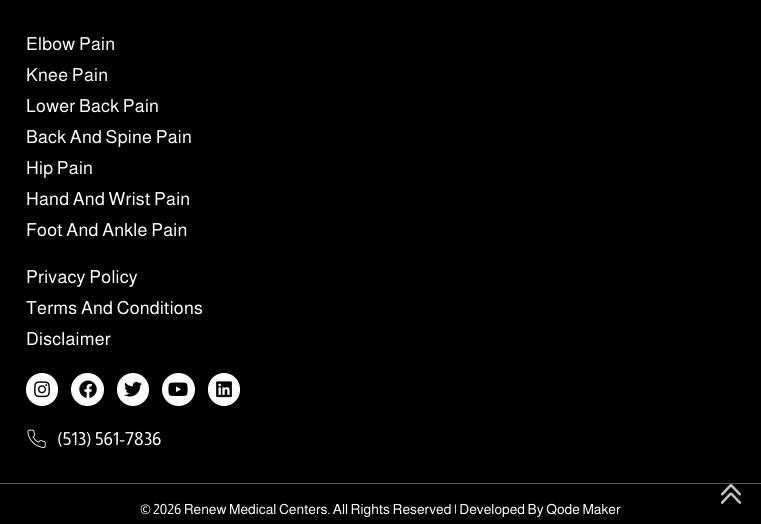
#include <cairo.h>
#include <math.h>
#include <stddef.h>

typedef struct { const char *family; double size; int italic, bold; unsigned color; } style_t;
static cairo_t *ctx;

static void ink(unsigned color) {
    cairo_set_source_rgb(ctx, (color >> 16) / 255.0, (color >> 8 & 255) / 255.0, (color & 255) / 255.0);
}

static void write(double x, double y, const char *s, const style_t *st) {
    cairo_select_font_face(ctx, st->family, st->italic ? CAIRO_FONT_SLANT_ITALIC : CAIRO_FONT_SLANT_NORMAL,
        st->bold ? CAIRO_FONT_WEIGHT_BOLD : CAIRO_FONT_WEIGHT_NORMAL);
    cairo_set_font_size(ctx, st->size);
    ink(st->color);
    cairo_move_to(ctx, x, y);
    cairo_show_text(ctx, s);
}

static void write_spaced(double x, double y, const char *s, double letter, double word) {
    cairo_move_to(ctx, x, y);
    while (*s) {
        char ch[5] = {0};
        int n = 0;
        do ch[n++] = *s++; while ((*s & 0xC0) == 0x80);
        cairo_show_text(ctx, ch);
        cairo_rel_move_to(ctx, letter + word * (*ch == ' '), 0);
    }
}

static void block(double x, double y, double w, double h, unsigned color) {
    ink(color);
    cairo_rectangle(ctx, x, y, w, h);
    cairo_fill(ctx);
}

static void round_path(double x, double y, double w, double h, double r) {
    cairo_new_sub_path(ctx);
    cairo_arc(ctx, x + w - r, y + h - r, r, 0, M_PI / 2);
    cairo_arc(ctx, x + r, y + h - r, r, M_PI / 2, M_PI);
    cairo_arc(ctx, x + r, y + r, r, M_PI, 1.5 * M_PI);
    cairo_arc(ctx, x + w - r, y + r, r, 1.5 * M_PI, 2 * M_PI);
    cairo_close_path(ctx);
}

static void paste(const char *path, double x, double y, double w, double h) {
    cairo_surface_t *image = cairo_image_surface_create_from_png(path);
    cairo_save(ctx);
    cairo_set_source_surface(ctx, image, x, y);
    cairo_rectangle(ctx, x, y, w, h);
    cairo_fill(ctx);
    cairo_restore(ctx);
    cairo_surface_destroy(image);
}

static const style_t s1 = {"Almarai", 18, 0, 0, 0xffffff};
static const style_t s2 = {"Almarai", 14, 0, 0, 0xffffff};

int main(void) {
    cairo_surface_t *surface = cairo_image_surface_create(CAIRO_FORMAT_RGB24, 761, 524);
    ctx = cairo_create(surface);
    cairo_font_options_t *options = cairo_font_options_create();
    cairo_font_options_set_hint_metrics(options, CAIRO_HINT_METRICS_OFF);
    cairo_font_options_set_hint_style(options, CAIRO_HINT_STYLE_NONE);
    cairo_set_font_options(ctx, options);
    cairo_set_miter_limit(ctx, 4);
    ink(0x000000);
    cairo_paint(ctx);
    cairo_select_font_face(ctx, "Almarai", CAIRO_FONT_SLANT_NORMAL, CAIRO_FONT_WEIGHT_NORMAL);
    cairo_set_font_size(ctx, 18);
    ink(0xffffff);
    write_spaced(26, 50, "Elbow Pain", 0.25, 0);
    write_spaced(26, 81, "Knee Pain", 0.25, 0);
    write_spaced(26, 112, "Lower Back Pain", 0.25, 0);
    write_spaced(26, 143, "Back And Spine Pain", 0.25, 0);
    write_spaced(26, 174, "Hip Pain", 0.25, 0);
    write_spaced(26, 205, "Hand And Wrist Pain", 0.25, 0);
    write_spaced(26, 236, "Foot And Ankle Pain", 0.25, 0);
    write_spaced(26, 283, "Privacy Policy", 0.25, 0);
    write_spaced(26, 314, "Terms And Conditions", 0.25, 0);
    write_spaced(26, 345, "Disclaimer", 0.25, 0);
    round_path(26, 373, 32, 33, 16);
    cairo_fill(ctx);
    paste("pic1.png", 34, 381, 16, 17);
    cairo_arc(ctx, 87.5, 389.5, 16.5, 0, 2 * M_PI);
    cairo_fill(ctx);
    paste("pic2.png", 79, 380, 18, 18);
    round_path(117, 373, 32, 33, 16);
    cairo_fill(ctx);
    paste("pic3.png", 124, 381, 18, 16);
    cairo_arc(ctx, 178.5, 389.5, 16.5, 0, 2 * M_PI);
    cairo_fill(ctx);
    paste("pic4.png", 168, 382, 20, 14);
    round_path(208, 373, 32, 33, 16);
    cairo_fill(ctx);
    paste("pic5.png", 216, 381, 16, 17);
    paste("pic6.png", 27, 429, 19, 19);
    write(57, 445, "(513) 561-7836", &s1);
    block(0, 483, 761, 1, 0x555555);
    write(140, 514, "©", &s2);
    write(153, 514, "2026 Renew Medical Centers. All Rights Reserved | Developed By Qode Maker", &s2);
    paste("pic7.png", 721, 484, 20, 20);
    cairo_surface_write_to_png(surface, "screenshot.png");
    cairo_font_options_destroy(options);
    cairo_destroy(ctx);
    cairo_surface_destroy(surface);
    return 0;
}
